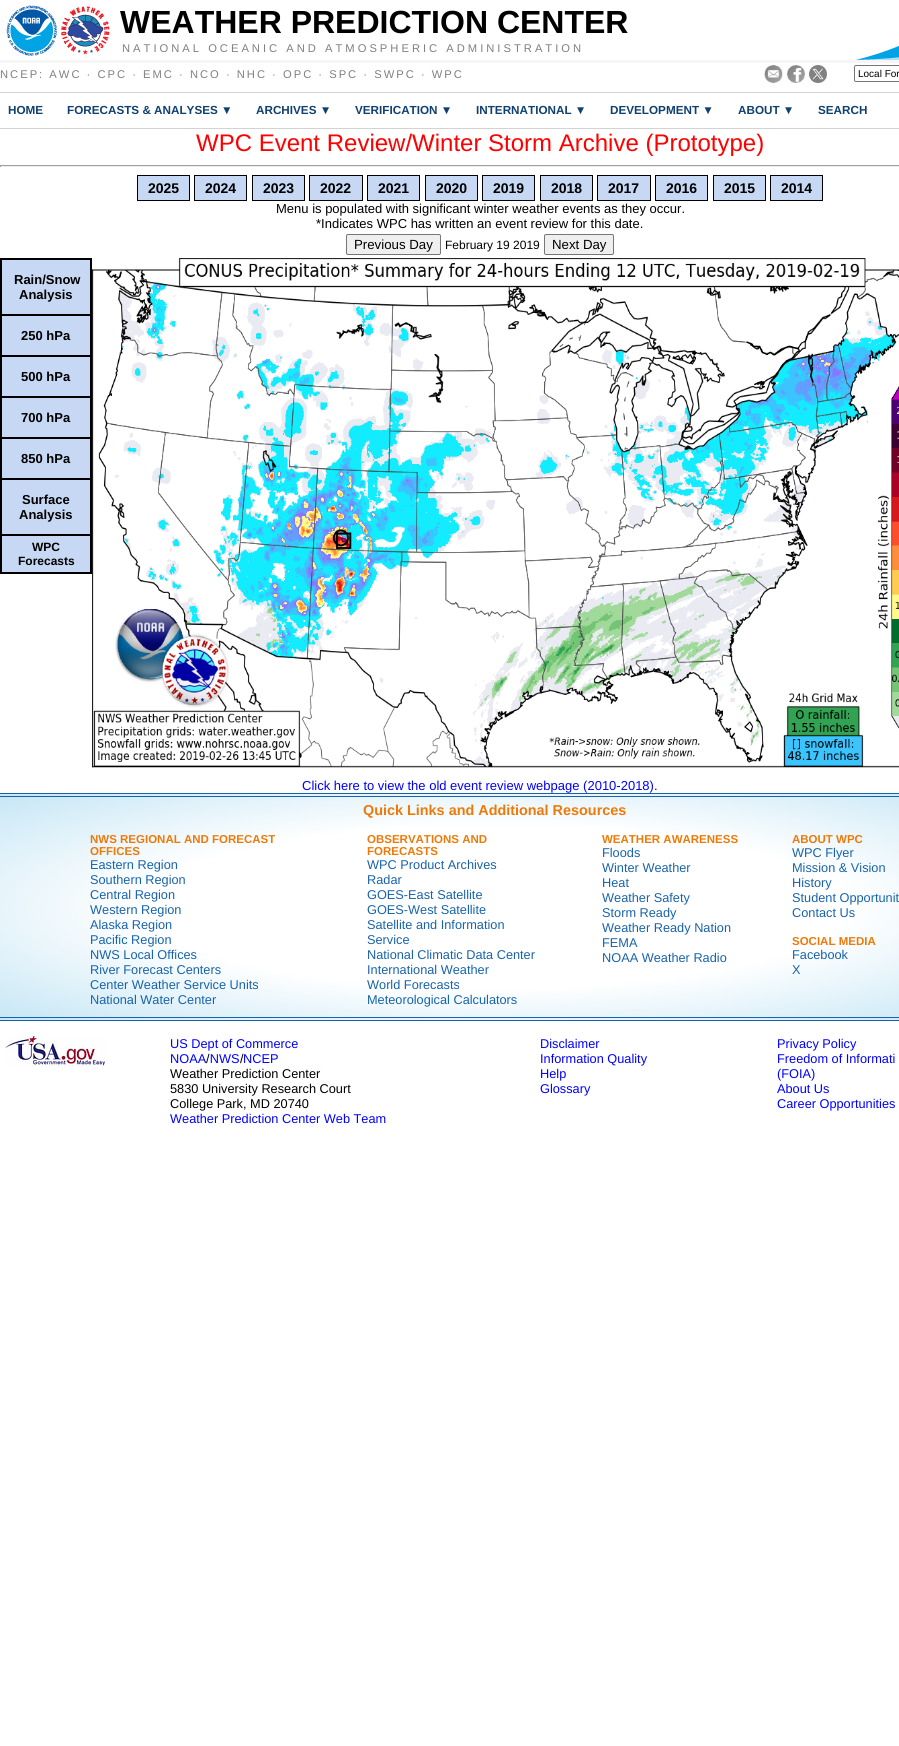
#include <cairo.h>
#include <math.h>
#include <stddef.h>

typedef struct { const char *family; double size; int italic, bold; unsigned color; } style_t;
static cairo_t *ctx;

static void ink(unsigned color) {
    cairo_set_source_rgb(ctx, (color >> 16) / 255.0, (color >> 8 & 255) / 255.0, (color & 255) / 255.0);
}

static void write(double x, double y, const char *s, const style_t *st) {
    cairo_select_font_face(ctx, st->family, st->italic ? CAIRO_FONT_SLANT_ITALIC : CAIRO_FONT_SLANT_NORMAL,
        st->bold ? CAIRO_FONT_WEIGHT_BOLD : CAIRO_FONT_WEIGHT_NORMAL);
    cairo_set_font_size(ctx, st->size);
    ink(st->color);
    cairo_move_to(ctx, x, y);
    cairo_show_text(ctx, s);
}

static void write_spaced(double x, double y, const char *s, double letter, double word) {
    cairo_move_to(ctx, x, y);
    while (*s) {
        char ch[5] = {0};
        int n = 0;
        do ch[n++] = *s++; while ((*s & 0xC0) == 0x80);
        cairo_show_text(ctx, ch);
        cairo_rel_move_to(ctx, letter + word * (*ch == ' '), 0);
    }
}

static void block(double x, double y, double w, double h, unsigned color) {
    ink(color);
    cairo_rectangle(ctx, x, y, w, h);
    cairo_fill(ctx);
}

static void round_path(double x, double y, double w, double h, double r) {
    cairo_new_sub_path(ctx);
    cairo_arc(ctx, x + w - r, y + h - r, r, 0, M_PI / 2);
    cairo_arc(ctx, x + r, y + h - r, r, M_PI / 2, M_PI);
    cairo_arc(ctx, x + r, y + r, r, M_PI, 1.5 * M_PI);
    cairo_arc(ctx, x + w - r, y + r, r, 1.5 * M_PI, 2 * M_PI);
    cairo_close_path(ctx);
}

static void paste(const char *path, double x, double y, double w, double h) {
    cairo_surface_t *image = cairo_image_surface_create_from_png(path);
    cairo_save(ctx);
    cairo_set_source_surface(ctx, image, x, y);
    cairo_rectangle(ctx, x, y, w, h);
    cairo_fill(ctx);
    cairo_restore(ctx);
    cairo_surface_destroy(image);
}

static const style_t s1 = {"Liberation Sans", 32, 0, 1, 0x000000};
static const style_t s2 = {"Liberation Sans", 10, 0, 0, 0x000000};
static const style_t s3 = {"Liberation Sans", 11.7, 0, 1, 0x104070};
static const style_t s4 = {"Liberation Sans", 24, 0, 0, 0xff0000};
static const style_t s5 = {"Liberation Sans", 14, 0, 1, 0x000000};
static const style_t s6 = {"Liberation Sans", 13, 0, 0, 0x000000};
static const style_t s7 = {"Liberation Sans", 13.25, 0, 0, 0x000000};
static const style_t s8 = {"Liberation Sans", 12, 0, 0, 0x000000};
static const style_t s9 = {"Liberation Sans", 13, 0, 1, 0x000000};
static const style_t s10 = {"Liberation Sans", 12, 0, 1, 0x000000};
static const style_t s11 = {"Liberation Sans", 13, 0, 0, 0x0000ff};
static const style_t s12 = {"Liberation Sans", 14.4, 0, 1, 0xed7a08};
static const style_t s13 = {"Liberation Sans", 11.5, 0, 1, 0xed7a08};
static const style_t s14 = {"Liberation Sans", 12.75, 0, 0, 0x1763ab};
static const style_t s15 = {"Liberation Sans", 12.75, 0, 0, 0x0000ff};
static const style_t s16 = {"Liberation Sans", 12.75, 0, 0, 0x000000};

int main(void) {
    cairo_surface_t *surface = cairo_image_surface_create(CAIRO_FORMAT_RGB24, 899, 1746);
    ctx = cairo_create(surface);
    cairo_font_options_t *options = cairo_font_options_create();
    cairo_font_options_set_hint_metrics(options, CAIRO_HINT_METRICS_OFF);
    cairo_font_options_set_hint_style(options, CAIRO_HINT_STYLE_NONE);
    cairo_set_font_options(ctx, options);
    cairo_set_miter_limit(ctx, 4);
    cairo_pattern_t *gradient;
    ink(0xffffff);
    cairo_paint(ctx);
    paste("pic1.png", 6, 5, 51, 51);
    paste("pic2.png", 61, 6, 49, 49);
    write(120, 33, "WEATHER PREDICTION CENTER", &s1);
    cairo_select_font_face(ctx, "Liberation Sans", CAIRO_FONT_SLANT_NORMAL, CAIRO_FONT_WEIGHT_NORMAL);
    cairo_set_font_size(ctx, 11.2);
    ink(0x808080);
    write_spaced(122, 52, "NATIONAL OCEANIC AND ATMOSPHERIC ADMINISTRATION", 3, 0);
    paste("pic3.png", 855, 46, 44, 14);
    block(0, 60, 899, 3, 0xf6f6f6);
    block(0, 92, 899, 1, 0xd3d3d3);
    ink(0x808080);
    write_spaced(0, 78, "NCEP: AWC · CPC · EMC · NCO · NHC · OPC · SPC · SWPC · WPC", 2, 0);
    paste("pic4.png", 764, 65, 19, 18);
    paste("pic5.png", 787, 65, 18, 18);
    paste("pic6.png", 809, 65, 18, 18);
    round_path(854.5, 65.5, 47, 16, 1.5);
    ink(0x767676);
    cairo_set_line_width(ctx, 1);
    cairo_stroke(ctx);
    write(858, 77, "Local For", &s2);
    block(0, 128, 899, 1, 0xd3d3d3);
    write(8, 114, "HOME", &s3);
    write(67, 114, "FORECASTS & ANALYSES ▼", &s3);
    write(256, 114, "ARCHIVES ▼", &s3);
    write(355, 114, "VERIFICATION ▼", &s3);
    write(476, 114, "INTERNATIONAL ▼", &s3);
    write(610, 114, "DEVELOPMENT ▼", &s3);
    write(738, 114, "ABOUT ▼", &s3);
    write(818, 114, "SEARCH", &s3);
    write(196, 151, "WPC Event Review/Winter Storm Archive (Prototype)", &s4);
    block(0, 165, 899, 1, 0x9f9f9f);
    block(0, 166, 899, 1, 0xeeeeee);
    block(0, 165, 1, 2, 0x9f9f9f);
    ink(0xc6d8f4);
    cairo_rectangle(ctx, 137.5, 175.5, 52, 25);
    cairo_fill_preserve(ctx);
    ink(0x000000);
    cairo_stroke(ctx);
    write(148, 193, "2025", &s5);
    ink(0xc6d8f4);
    cairo_rectangle(ctx, 194.5, 175.5, 52, 25);
    cairo_fill_preserve(ctx);
    ink(0x000000);
    cairo_stroke(ctx);
    write(205, 193, "2024", &s5);
    ink(0xc6d8f4);
    cairo_rectangle(ctx, 252.5, 175.5, 52, 25);
    cairo_fill_preserve(ctx);
    ink(0x000000);
    cairo_stroke(ctx);
    write(263, 193, "2023", &s5);
    ink(0xc6d8f4);
    cairo_rectangle(ctx, 309.5, 175.5, 53, 25);
    cairo_fill_preserve(ctx);
    ink(0x000000);
    cairo_stroke(ctx);
    write(320, 193, "2022", &s5);
    ink(0xc6d8f4);
    cairo_rectangle(ctx, 367.5, 175.5, 52, 25);
    cairo_fill_preserve(ctx);
    ink(0x000000);
    cairo_stroke(ctx);
    write(378, 193, "2021", &s5);
    ink(0xc6d8f4);
    cairo_rectangle(ctx, 425.5, 175.5, 52, 25);
    cairo_fill_preserve(ctx);
    ink(0x000000);
    cairo_stroke(ctx);
    write(436, 193, "2020", &s5);
    ink(0xc6d8f4);
    cairo_rectangle(ctx, 482.5, 175.5, 52, 25);
    cairo_fill_preserve(ctx);
    ink(0x000000);
    cairo_stroke(ctx);
    write(493, 193, "2019", &s5);
    ink(0xc6d8f4);
    cairo_rectangle(ctx, 540.5, 175.5, 52, 25);
    cairo_fill_preserve(ctx);
    ink(0x000000);
    cairo_stroke(ctx);
    write(551, 193, "2018", &s5);
    ink(0xc6d8f4);
    cairo_rectangle(ctx, 597.5, 175.5, 53, 25);
    cairo_fill_preserve(ctx);
    ink(0x000000);
    cairo_stroke(ctx);
    write(608, 193, "2017", &s5);
    ink(0xc6d8f4);
    cairo_rectangle(ctx, 655.5, 175.5, 52, 25);
    cairo_fill_preserve(ctx);
    ink(0x000000);
    cairo_stroke(ctx);
    write(666, 193, "2016", &s5);
    ink(0xc6d8f4);
    cairo_rectangle(ctx, 713.5, 175.5, 52, 25);
    cairo_fill_preserve(ctx);
    ink(0x000000);
    cairo_stroke(ctx);
    write(724, 193, "2015", &s5);
    ink(0xc6d8f4);
    cairo_rectangle(ctx, 770.5, 175.5, 52, 25);
    cairo_fill_preserve(ctx);
    ink(0x000000);
    cairo_stroke(ctx);
    write(781, 193, "2014", &s5);
    write(276, 213, "Menu is populated with significant winter weather events as they occur.", &s6);
    write(316, 228, "*Indicates WPC has written an event review for this date.", &s6);
    ink(0xefefef);
    round_path(346.5, 234.5, 94, 20, 1.5);
    cairo_fill_preserve(ctx);
    ink(0x767676);
    cairo_stroke(ctx);
    write(354, 249, "Previous Day", &s7);
    write(445, 249, "February 19 2019", &s8);
    ink(0xefefef);
    round_path(544.5, 234.5, 69, 20, 1.5);
    cairo_fill_preserve(ctx);
    ink(0x767676);
    cairo_stroke(ctx);
    write(552, 249, "Next Day", &s7);
    cairo_rectangle(ctx, 0.5, 258.5, 91, 315);
    cairo_stroke(ctx);
    ink(0xc6d8f4);
    cairo_rectangle(ctx, 1.5, 259.5, 89, 55);
    cairo_fill_preserve(ctx);
    ink(0x000000);
    cairo_stroke(ctx);
    write(14, 284, "Rain/Snow", &s9);
    write(19, 299, "Analysis", &s9);
    ink(0xc6d8f4);
    cairo_rectangle(ctx, 1.5, 315.5, 89, 40);
    cairo_fill_preserve(ctx);
    ink(0x000000);
    cairo_stroke(ctx);
    write(21, 340, "250 hPa", &s9);
    ink(0xc6d8f4);
    cairo_rectangle(ctx, 1.5, 356.5, 89, 40);
    cairo_fill_preserve(ctx);
    ink(0x000000);
    cairo_stroke(ctx);
    write(21, 381, "500 hPa", &s9);
    ink(0xc6d8f4);
    cairo_rectangle(ctx, 1.5, 397.5, 89, 40);
    cairo_fill_preserve(ctx);
    ink(0x000000);
    cairo_stroke(ctx);
    write(21, 422, "700 hPa", &s9);
    ink(0xc6d8f4);
    cairo_rectangle(ctx, 1.5, 438.5, 89, 40);
    cairo_fill_preserve(ctx);
    ink(0x000000);
    cairo_stroke(ctx);
    write(21, 463, "850 hPa", &s9);
    ink(0xc6d8f4);
    cairo_rectangle(ctx, 1.5, 479.5, 89, 55);
    cairo_fill_preserve(ctx);
    ink(0x000000);
    cairo_stroke(ctx);
    write(22, 504, "Surface", &s9);
    write(19, 519, "Analysis", &s9);
    ink(0xc6d8f4);
    cairo_rectangle(ctx, 1.5, 535.5, 89, 37);
    cairo_fill_preserve(ctx);
    ink(0x000000);
    cairo_stroke(ctx);
    write(32, 551, "WPC", &s10);
    write(18, 565, "Forecasts", &s10);
    paste("pic7.png", 92, 258, 807, 510);
    write(302, 790, "Click here to view the old event review webpage (2010-2018).", &s11);
    gradient = cairo_pattern_create_radial(0, 0, 0, 0, 0, 1);
    cairo_pattern_set_matrix(gradient, &(cairo_matrix_t){1.0 / 700, 0, 0, 1.0 / 161, -1.0 * 495 / 700, -1.0 * 907 / 161});
    cairo_pattern_add_color_stop_rgba(gradient, 0, 1, 1, 1, 1);
    cairo_pattern_add_color_stop_rgba(gradient, 0.5, 1, 1, 1, 1);
    cairo_pattern_add_color_stop_rgba(gradient, 1, 0.776, 0.902, 0.961, 1);
    cairo_set_source(ctx, gradient);
    cairo_pattern_destroy(gradient);
    cairo_rectangle(ctx, 0, 794, 899, 226);
    cairo_fill(ctx);
    block(0, 793, 899, 1, 0x1763ab);
    block(0, 796, 899, 1, 0x1763ab);
    block(0, 1017, 899, 1, 0x1763ab);
    block(0, 1020, 899, 1, 0x1763ab);
    write(363, 815, "Quick Links and Additional Resources", &s12);
    write(90, 843, "NWS REGIONAL AND FORECAST", &s13);
    write(90, 855, "OFFICES", &s13);
    write(90, 869, "Eastern Region", &s14);
    write(90, 884, "Southern Region", &s14);
    write(90, 899, "Central Region", &s14);
    write(90, 914, "Western Region", &s14);
    write(90, 929, "Alaska Region", &s14);
    write(90, 944, "Pacific Region", &s14);
    write(90, 959, "NWS Local Offices", &s14);
    write(90, 974, "River Forecast Centers", &s14);
    write(90, 989, "Center Weather Service Units", &s14);
    write(90, 1004, "National Water Center", &s14);
    write(367, 843, "OBSERVATIONS AND", &s13);
    write(367, 855, "FORECASTS", &s13);
    write(367, 869, "WPC Product Archives", &s14);
    write(367, 884, "Radar", &s14);
    write(367, 899, "GOES-East Satellite", &s14);
    write(367, 914, "GOES-West Satellite", &s14);
    write(367, 929, "Satellite and Information", &s14);
    write(367, 944, "Service", &s14);
    write(367, 959, "National Climatic Data Center", &s14);
    write(367, 974, "International Weather", &s14);
    write(367, 989, "World Forecasts", &s14);
    write(367, 1004, "Meteorological Calculators", &s14);
    write(602, 843, "WEATHER AWARENESS", &s13);
    write(602, 857, "Floods", &s14);
    write(602, 872, "Winter Weather", &s14);
    write(602, 887, "Heat", &s14);
    write(602, 902, "Weather Safety", &s14);
    write(602, 917, "Storm Ready", &s14);
    write(602, 932, "Weather Ready Nation", &s14);
    write(602, 947, "FEMA", &s14);
    write(602, 962, "NOAA Weather Radio", &s14);
    write(792, 843, "ABOUT WPC", &s13);
    write(792, 857, "WPC Flyer", &s14);
    write(792, 872, "Mission & Vision", &s14);
    write(792, 887, "History", &s14);
    write(792, 902, "Student Opportunit", &s14);
    write(792, 917, "Contact Us", &s14);
    write(792, 945, "SOCIAL MEDIA", &s13);
    write(792, 959, "Facebook", &s14);
    write(792, 974, "X", &s14);
    paste("pic8.png", 5, 1036, 100, 30);
    write(170, 1048, "US Dept of Commerce", &s15);
    write(170, 1063, "NOAA NWS NCEP", &s15);
    write(206, 1063, "/", &s16);
    write(240, 1063, "/", &s16);
    write(170, 1078, "Weather Prediction Center", &s16);
    write(170, 1093, "5830 University Research Court", &s16);
    write(170, 1108, "College Park, MD 20740", &s16);
    write(170, 1123, "Weather Prediction Center Web Team", &s15);
    write(540, 1048, "Disclaimer", &s15);
    write(540, 1063, "Information Quality", &s15);
    write(540, 1078, "Help", &s15);
    write(540, 1093, "Glossary", &s15);
    write(777, 1048, "Privacy Policy", &s15);
    write(777, 1063, "Freedom of Informati", &s15);
    write(777, 1078, "(FOIA)", &s15);
    write(777, 1093, "About Us", &s15);
    write(777, 1108, "Career Opportunities", &s15);
    cairo_surface_write_to_png(surface, "screenshot.png");
    cairo_font_options_destroy(options);
    cairo_destroy(ctx);
    cairo_surface_destroy(surface);
    return 0;
}
